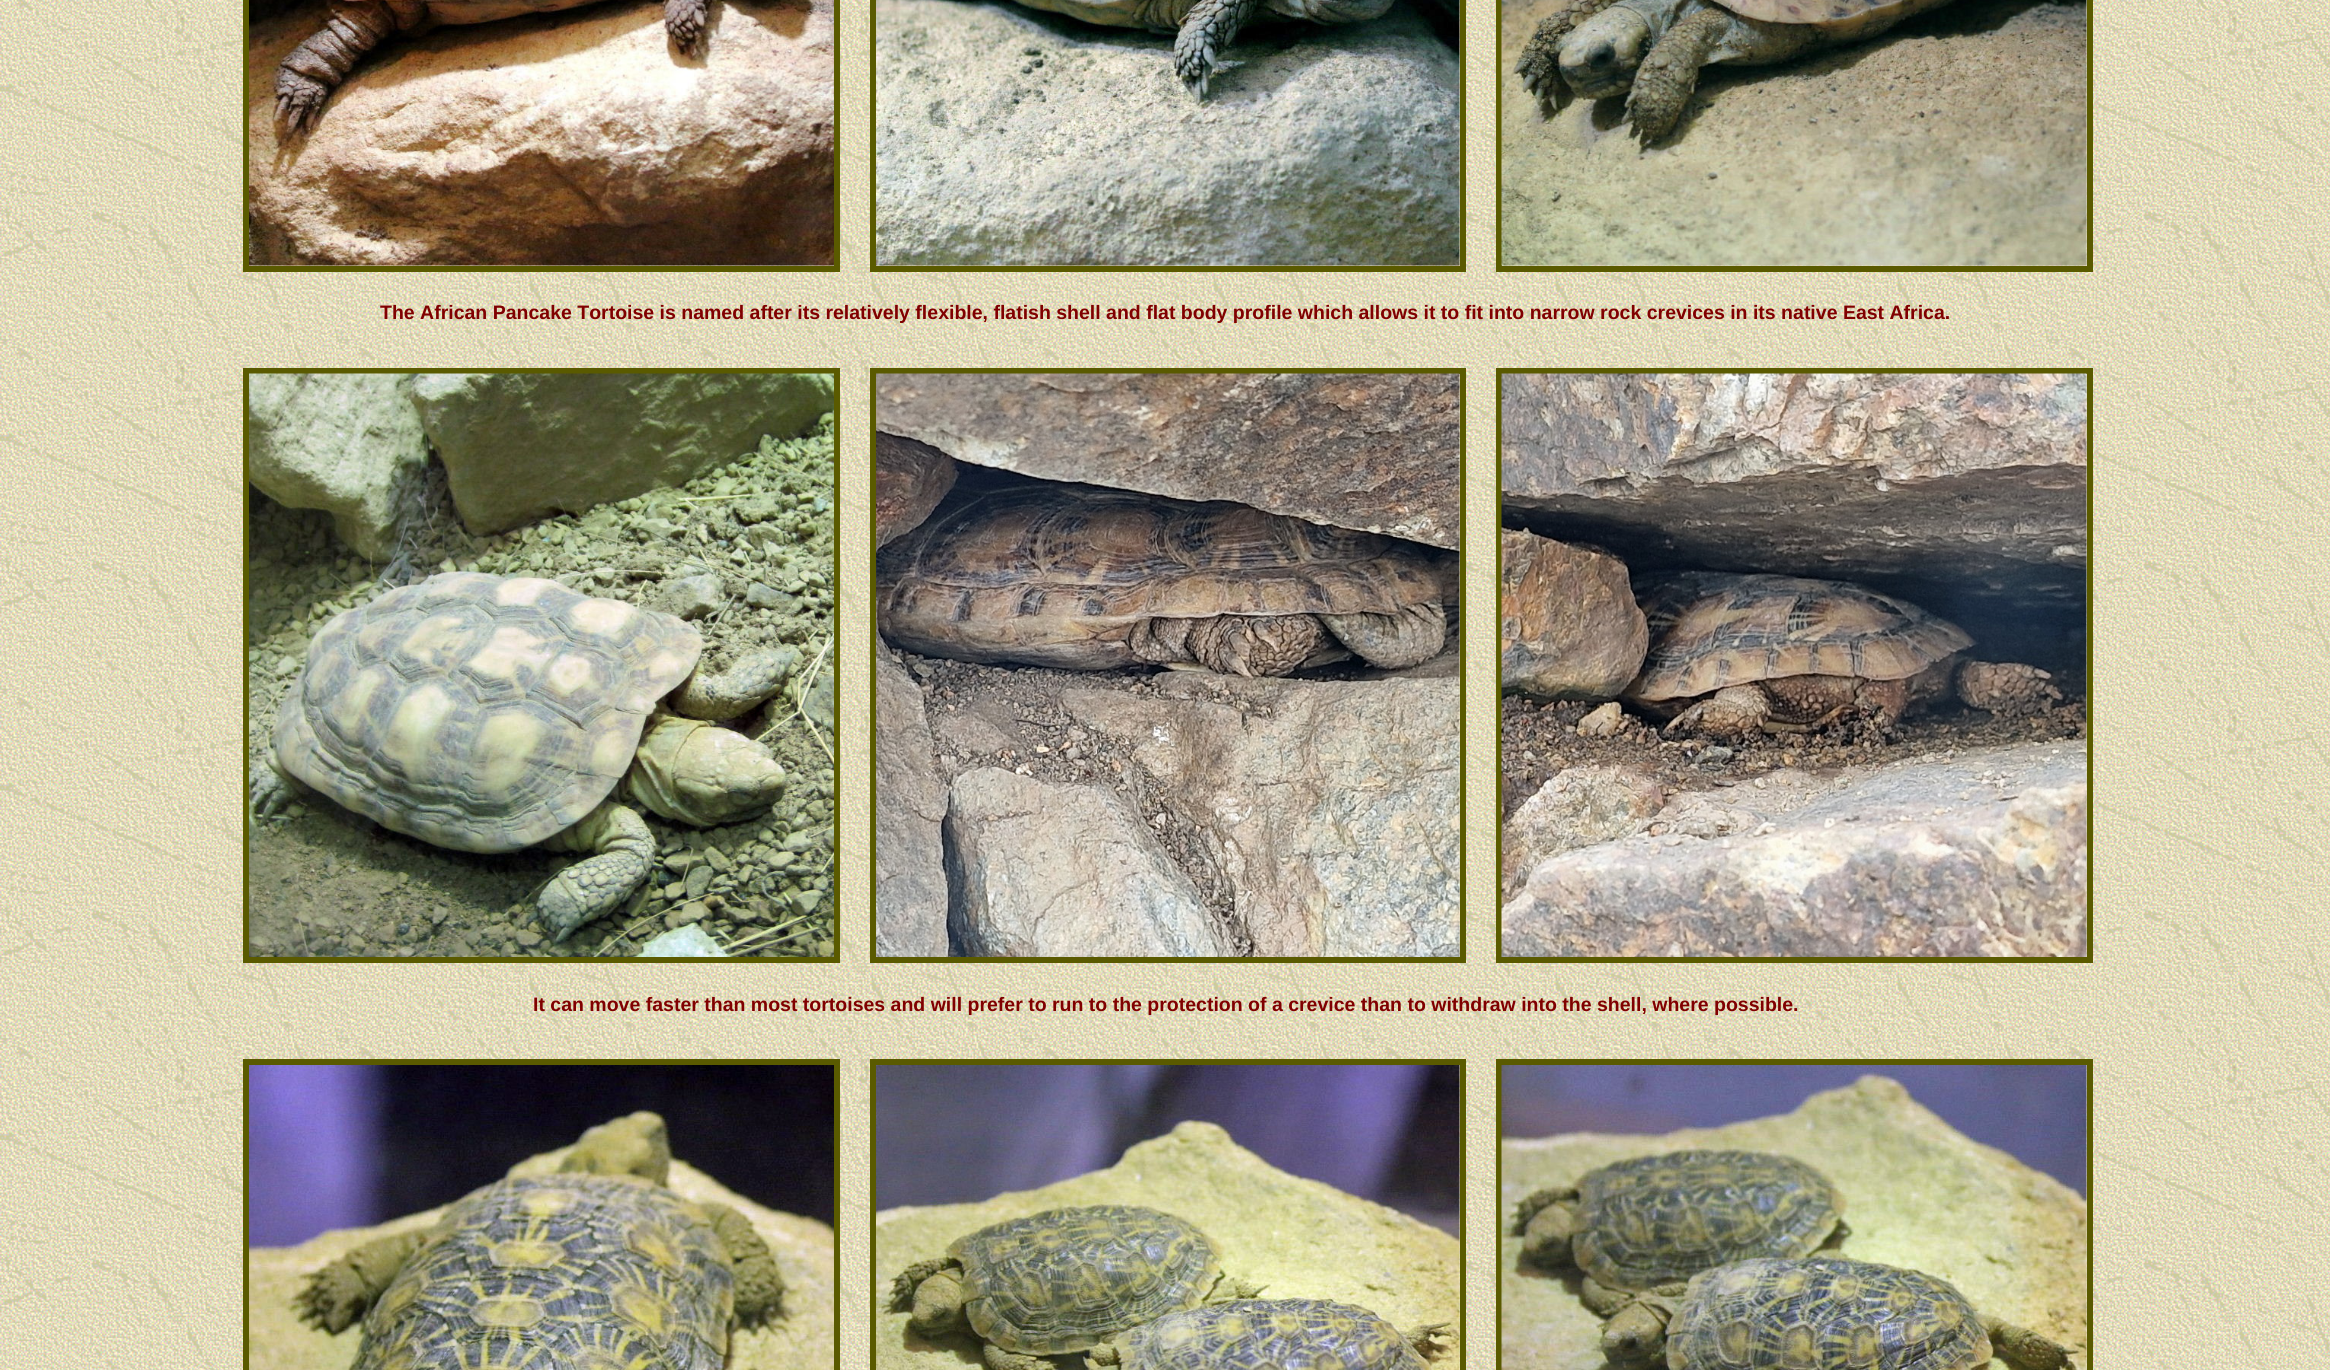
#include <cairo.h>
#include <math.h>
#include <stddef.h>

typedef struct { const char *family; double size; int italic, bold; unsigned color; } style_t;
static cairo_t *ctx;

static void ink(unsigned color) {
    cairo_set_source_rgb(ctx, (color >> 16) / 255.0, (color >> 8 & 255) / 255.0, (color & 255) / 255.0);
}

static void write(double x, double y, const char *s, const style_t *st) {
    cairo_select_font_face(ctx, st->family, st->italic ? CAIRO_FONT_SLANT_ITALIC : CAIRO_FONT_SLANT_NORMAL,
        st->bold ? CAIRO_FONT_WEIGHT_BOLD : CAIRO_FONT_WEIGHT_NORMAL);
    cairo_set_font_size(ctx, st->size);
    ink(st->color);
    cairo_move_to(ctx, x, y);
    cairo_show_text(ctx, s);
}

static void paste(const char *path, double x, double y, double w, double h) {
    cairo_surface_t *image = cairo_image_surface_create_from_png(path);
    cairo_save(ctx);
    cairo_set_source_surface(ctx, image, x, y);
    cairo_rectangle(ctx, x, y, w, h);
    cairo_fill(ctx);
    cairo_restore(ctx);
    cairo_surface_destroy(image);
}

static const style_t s1 = {"Liberation Sans", 19.5, 0, 1, 0x800000};

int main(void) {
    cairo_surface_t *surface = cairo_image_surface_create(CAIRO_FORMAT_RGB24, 2330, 1370);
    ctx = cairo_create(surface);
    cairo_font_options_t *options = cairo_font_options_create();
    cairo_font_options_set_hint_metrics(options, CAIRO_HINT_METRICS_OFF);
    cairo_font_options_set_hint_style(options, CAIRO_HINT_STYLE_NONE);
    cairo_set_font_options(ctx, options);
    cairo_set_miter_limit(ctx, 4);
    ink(0xffffff);
    cairo_paint(ctx);
    paste("pic1.png", 0, 0, 2330, 1370);
    cairo_rectangle(ctx, 246, -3, 591, 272);
    ink(0x5a5a00);
    cairo_set_line_width(ctx, 6);
    cairo_stroke(ctx);
    paste("pic2.png", 249, 0, 585, 266);
    cairo_rectangle(ctx, 873, -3, 590, 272);
    cairo_stroke(ctx);
    paste("pic3.png", 876, 0, 584, 266);
    cairo_rectangle(ctx, 1499, -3, 591, 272);
    cairo_stroke(ctx);
    paste("pic4.png", 1501, 0, 586, 266);
    write(380, 319, "The African Pancake Tortoise is named after its relatively flexible, flatish shell and flat body profile which allows it to fit into narrow rock crevices in its native East Africa.", &s1);
    cairo_rectangle(ctx, 246, 371, 591, 589);
    ink(0x5a5a00);
    cairo_stroke(ctx);
    paste("pic5.png", 249, 373, 585, 584);
    cairo_rectangle(ctx, 873, 371, 590, 589);
    cairo_stroke(ctx);
    paste("pic6.png", 876, 373, 584, 584);
    cairo_rectangle(ctx, 1499, 371, 591, 589);
    cairo_stroke(ctx);
    paste("pic7.png", 1501, 373, 586, 584);
    write(533, 1011, "It can move faster than most tortoises and will prefer to run to the protection of a crevice than to withdraw into the shell, where possible.", &s1);
    cairo_rectangle(ctx, 246, 1062, 591, 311);
    ink(0x5a5a00);
    cairo_stroke(ctx);
    paste("pic8.png", 249, 1065, 585, 305);
    cairo_rectangle(ctx, 873, 1062, 590, 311);
    cairo_stroke(ctx);
    paste("pic9.png", 876, 1065, 584, 305);
    cairo_rectangle(ctx, 1499, 1062, 591, 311);
    cairo_stroke(ctx);
    paste("pic10.png", 1501, 1065, 586, 305);
    cairo_surface_write_to_png(surface, "screenshot.png");
    cairo_font_options_destroy(options);
    cairo_destroy(ctx);
    cairo_surface_destroy(surface);
    return 0;
}
